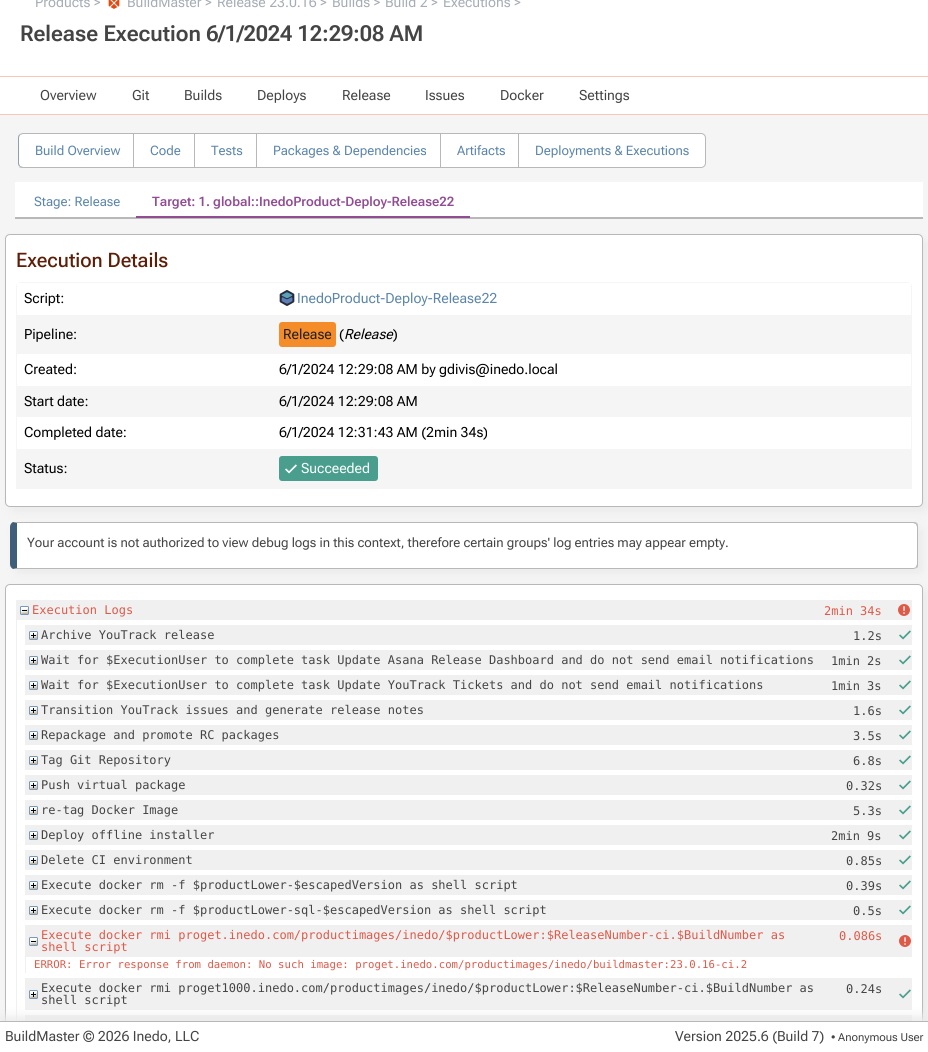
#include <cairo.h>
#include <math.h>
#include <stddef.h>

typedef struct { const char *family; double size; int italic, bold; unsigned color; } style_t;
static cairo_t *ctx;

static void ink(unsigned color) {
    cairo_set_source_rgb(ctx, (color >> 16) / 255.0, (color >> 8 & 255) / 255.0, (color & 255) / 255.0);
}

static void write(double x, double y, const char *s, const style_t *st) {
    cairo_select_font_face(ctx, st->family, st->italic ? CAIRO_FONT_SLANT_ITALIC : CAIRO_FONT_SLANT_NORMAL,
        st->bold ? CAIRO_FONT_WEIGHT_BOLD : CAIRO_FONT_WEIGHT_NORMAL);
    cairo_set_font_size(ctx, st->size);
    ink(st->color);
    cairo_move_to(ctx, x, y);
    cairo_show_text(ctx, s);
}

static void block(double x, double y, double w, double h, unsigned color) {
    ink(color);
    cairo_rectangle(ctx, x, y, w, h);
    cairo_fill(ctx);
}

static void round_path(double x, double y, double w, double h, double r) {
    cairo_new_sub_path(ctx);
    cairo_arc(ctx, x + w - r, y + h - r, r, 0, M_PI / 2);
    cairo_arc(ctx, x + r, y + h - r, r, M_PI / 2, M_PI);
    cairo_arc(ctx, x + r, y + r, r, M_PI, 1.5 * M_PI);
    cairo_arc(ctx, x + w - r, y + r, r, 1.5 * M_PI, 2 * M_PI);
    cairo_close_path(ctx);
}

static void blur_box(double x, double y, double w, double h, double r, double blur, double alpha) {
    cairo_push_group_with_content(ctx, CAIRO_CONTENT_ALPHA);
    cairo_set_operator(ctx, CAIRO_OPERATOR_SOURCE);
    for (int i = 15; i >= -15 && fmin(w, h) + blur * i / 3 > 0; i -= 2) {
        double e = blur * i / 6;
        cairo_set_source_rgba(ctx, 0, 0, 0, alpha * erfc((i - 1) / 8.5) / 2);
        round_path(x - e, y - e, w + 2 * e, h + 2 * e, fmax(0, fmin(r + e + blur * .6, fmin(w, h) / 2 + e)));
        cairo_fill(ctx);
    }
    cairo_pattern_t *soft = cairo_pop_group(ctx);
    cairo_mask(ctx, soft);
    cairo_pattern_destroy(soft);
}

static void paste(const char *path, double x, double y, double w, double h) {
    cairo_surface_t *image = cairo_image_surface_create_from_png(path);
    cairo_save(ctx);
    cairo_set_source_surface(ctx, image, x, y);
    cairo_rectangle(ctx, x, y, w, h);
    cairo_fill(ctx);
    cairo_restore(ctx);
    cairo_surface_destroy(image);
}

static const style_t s1 = {"Roboto Flex", 14, 0, 0, 0xa6adb6};
static const style_t s2 = {"Roboto Flex SemiBold", 22, 0, 0, 0x444444};
static const style_t s3 = {"Roboto Flex", 14, 0, 0, 0x444444};
static const style_t s4 = {"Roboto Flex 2", 13, 0, 0, 0x5b85aa};
static const style_t s5 = {"Roboto Flex 2 SemiBold", 13, 0, 0, 0x914c94};
static const style_t s6 = {"Roboto Flex Medium", 20, 0, 0, 0x5d1d06};
static const style_t s7 = {"Roboto Flex", 14, 0, 0, 0x000000};
static const style_t s8 = {"Roboto Flex", 14, 0, 0, 0x5b85aa};
static const style_t s9 = {"Roboto Flex", 14, 0, 0, 0x1e1e1e};
static const style_t s10 = {"Roboto Flex", 14, 1, 0, 0x000000};
static const style_t s11 = {"Roboto Flex", 14, 0, 0, 0xffffff};
static const style_t s12 = {"Roboto Flex 2", 13, 0, 0, 0x444444};
static const style_t s13 = {"DejaVu Sans Mono", 12, 0, 0, 0xde5948};
static const style_t s14 = {"DejaVu Sans Mono", 12, 0, 0, 0x444444};
static const style_t s15 = {"DejaVu Sans Mono", 10.67, 0, 0, 0xde5948};
static const style_t s16 = {"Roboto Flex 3", 11, 0, 0, 0x444444};

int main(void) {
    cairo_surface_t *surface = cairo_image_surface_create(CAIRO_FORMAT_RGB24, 928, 1052);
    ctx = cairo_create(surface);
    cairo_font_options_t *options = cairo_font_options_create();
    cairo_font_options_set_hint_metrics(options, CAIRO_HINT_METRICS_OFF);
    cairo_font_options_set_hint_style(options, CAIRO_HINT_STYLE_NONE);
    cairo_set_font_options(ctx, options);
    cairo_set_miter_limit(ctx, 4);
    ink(0xf5f5f5);
    cairo_paint(ctx);
    block(0, 0, 928, 76, 0xffffff);
    block(0, 76, 928, 1, 0xfac7b5);
    write(35, 7, "Products >", &s1);
    paste("pic1.png", 108, 0, 12, 9);
    write(127, 7, "BuildMaster >", &s1);
    write(217, 7, "Release 23.0.16 >", &s1);
    write(332, 7, "Builds >", &s1);
    write(385, 7, "Build 2 >", &s1);
    write(443, 7, "Executions >", &s1);
    write(20, 41, "Release Execution 6/1/2024 12:29:08 AM", &s2);
    block(0, 77, 928, 37, 0xffffff);
    block(0, 114, 928, 1, 0xfac7b5);
    write(40, 100, "Overview", &s3);
    write(132, 100, "Git", &s3);
    write(184, 100, "Builds", &s3);
    write(257, 100, "Deploys", &s3);
    write(342, 100, "Release", &s3);
    write(425, 100, "Issues", &s3);
    write(500, 100, "Docker", &s3);
    write(579, 100, "Settings", &s3);
    ink(0xffffff);
    cairo_new_path(ctx);
    cairo_move_to(ctx, 23, 133);
    cairo_line_to(ctx, 137, 133);
    cairo_line_to(ctx, 137, 168);
    cairo_line_to(ctx, 23, 168);
    cairo_curve_to(ctx, 20, 168, 18, 166, 18, 163);
    cairo_line_to(ctx, 18, 138);
    cairo_curve_to(ctx, 18, 135, 20, 133, 23, 133);
    cairo_close_path(ctx);
    cairo_fill(ctx);
    ink(0xb8b8b8);
    cairo_new_path(ctx);
    cairo_move_to(ctx, 23, 133);
    cairo_curve_to(ctx, 22, 133, 20, 134, 19, 134);
    cairo_line_to(ctx, 20, 135);
    cairo_line_to(ctx, 23, 134);
    cairo_line_to(ctx, 136, 134);
    cairo_line_to(ctx, 137, 133);
    cairo_close_path(ctx);
    cairo_fill(ctx);
    cairo_new_path(ctx);
    cairo_move_to(ctx, 137, 168);
    cairo_line_to(ctx, 136, 167);
    cairo_line_to(ctx, 23, 167);
    cairo_line_to(ctx, 20, 166);
    cairo_line_to(ctx, 19, 167);
    cairo_curve_to(ctx, 20, 168, 22, 168, 23, 168);
    cairo_close_path(ctx);
    cairo_fill(ctx);
    ink(0x8da0b1);
    cairo_new_path(ctx);
    cairo_move_to(ctx, 18, 138);
    cairo_line_to(ctx, 18, 163);
    cairo_curve_to(ctx, 18, 164.5, 18.5, 166, 19.5, 166.5);
    cairo_line_to(ctx, 20, 166);
    cairo_curve_to(ctx, 19.5, 165, 19, 164, 19, 163);
    cairo_line_to(ctx, 19, 138);
    cairo_curve_to(ctx, 19, 137, 19.5, 136, 20, 135);
    cairo_line_to(ctx, 19.5, 134.5);
    cairo_curve_to(ctx, 18.5, 135, 18, 136.5, 18, 138);
    cairo_close_path(ctx);
    cairo_fill(ctx);
    write(35, 155, "Build Overview", &s4);
    block(137, 134, 57, 33, 0xffffff);
    cairo_rectangle(ctx, 133.5, 133.5, 64, 34);
    ink(0xb8b8b8);
    cairo_set_line_width(ctx, 1);
    cairo_stroke(ctx);
    write(150, 155, "Code", &s4);
    block(195, 134, 61, 33, 0xffffff);
    cairo_rectangle(ctx, 194.5, 133.5, 65, 34);
    ink(0xb8b8b8);
    cairo_stroke(ctx);
    write(211, 155, "Tests", &s4);
    block(257, 134, 183, 33, 0xffffff);
    cairo_rectangle(ctx, 256.5, 133.5, 187, 34);
    ink(0xb8b8b8);
    cairo_stroke(ctx);
    write(273, 155, "Packages & Dependencies", &s4);
    block(441, 134, 77, 33, 0xffffff);
    cairo_rectangle(ctx, 440.5, 133.5, 81, 34);
    ink(0xb8b8b8);
    cairo_stroke(ctx);
    write(457, 155, "Artifacts", &s4);
    ink(0xffffff);
    cairo_new_path(ctx);
    cairo_move_to(ctx, 518.5, 133.5);
    cairo_line_to(ctx, 701, 133.5);
    cairo_curve_to(ctx, 703.5, 133.5, 705.5, 135.5, 705.5, 138);
    cairo_line_to(ctx, 705.5, 163);
    cairo_curve_to(ctx, 705.5, 165.5, 703.5, 167.5, 701, 167.5);
    cairo_line_to(ctx, 518.5, 167.5);
    cairo_close_path(ctx);
    cairo_fill_preserve(ctx);
    ink(0xb8b8b8);
    cairo_stroke(ctx);
    write(535, 155, "Deployments & Executions", &s4);
    block(15, 182, 908, 35, 0xffffff);
    block(15, 217, 908, 2, 0xb8b8b8);
    write(34, 206, "Stage: Release", &s4);
    block(136, 216, 334, 2, 0x914c94);
    write(152, 206, "Target: 1. global::InedoProduct-Deploy-Release22", &s5);
    ink(0xebebeb);
    blur_box(10, 239, 918, 273, 5, 5, 1);
    ink(0xffffff);
    round_path(5.5, 234.5, 917, 272, 4.5);
    cairo_fill_preserve(ctx);
    ink(0xb8b8b8);
    cairo_stroke(ctx);
    write(16, 267, "Execution Details", &s6);
    cairo_new_path(ctx);
    cairo_move_to(ctx, 21, 282.5);
    cairo_line_to(ctx, 907, 282.5);
    cairo_curve_to(ctx, 909.5, 282.5, 911.5, 284.5, 911.5, 287);
    cairo_line_to(ctx, 911.5, 488.5);
    cairo_line_to(ctx, 16.5, 488.5);
    cairo_line_to(ctx, 16.5, 287);
    cairo_curve_to(ctx, 16.5, 284.5, 18.5, 282.5, 21, 282.5);
    cairo_close_path(ctx);
    ink(0xf5f5f5);
    cairo_stroke(ctx);
    block(17, 283, 894, 3, 0xffffff);
    write(24, 303, "Script:", &s7);
    paste("pic2.png", 279, 290, 16, 16);
    write(297, 303, "InedoProduct-Deploy-Release22", &s8);
    block(17, 315, 894, 39, 0xf5f5f5);
    write(24, 339, "Pipeline:", &s7);
    ink(0xf48c29);
    round_path(279, 322, 57, 25, 3);
    cairo_fill(ctx);
    write(283, 339, "Release", &s9);
    write(339, 339, "(", &s7);
    write(344, 339, "Release", &s10);
    write(393, 339, ")", &s7);
    write(24, 374, "Created:", &s7);
    write(279, 374, "6/1/2024 12:29:08 AM by gdivis@inedo.local", &s7);
    block(17, 386, 894, 31, 0xf5f5f5);
    write(24, 406, "Start date:", &s7);
    write(279, 406, "6/1/2024 12:29:08 AM", &s7);
    write(24, 437, "Completed date:", &s7);
    write(279, 437, "6/1/2024 12:31:43 AM (2min 34s)", &s7);
    block(17, 449, 894, 39, 0xf5f5f5);
    write(24, 473, "Status:", &s7);
    ink(0x499e8d);
    round_path(279, 456, 99, 25, 3);
    cairo_fill(ctx);
    paste("pic3.png", 285, 464, 12, 10);
    write(301, 473, "Succeeded", &s11);
    ink(0xebebeb);
    blur_box(15, 527, 908, 47, 5, 5, 1);
    ink(0xffffff);
    cairo_new_path(ctx);
    cairo_move_to(ctx, 17, 523);
    cairo_line_to(ctx, 913, 523);
    cairo_curve_to(ctx, 915, 523, 917, 525, 917, 527);
    cairo_line_to(ctx, 917, 564);
    cairo_curve_to(ctx, 917, 566, 915, 568, 913, 568);
    cairo_line_to(ctx, 17, 568);
    cairo_close_path(ctx);
    cairo_fill(ctx);
    ink(0xb8b8b8);
    cairo_new_path(ctx);
    cairo_move_to(ctx, 15, 522);
    cairo_line_to(ctx, 13, 522);
    cairo_line_to(ctx, 17, 523);
    cairo_line_to(ctx, 913, 523);
    cairo_curve_to(ctx, 914, 523, 915, 524, 916, 524);
    cairo_line_to(ctx, 917, 523);
    cairo_curve_to(ctx, 916, 522, 914, 522, 913, 522);
    cairo_close_path(ctx);
    cairo_fill(ctx);
    cairo_new_path(ctx);
    cairo_move_to(ctx, 918, 564);
    cairo_line_to(ctx, 918, 527);
    cairo_curve_to(ctx, 918, 526, 918, 524, 917, 523);
    cairo_line_to(ctx, 916, 524);
    cairo_curve_to(ctx, 916, 525, 917, 526, 917, 527);
    cairo_line_to(ctx, 917, 564);
    cairo_curve_to(ctx, 917, 565, 916, 566, 916, 567);
    cairo_line_to(ctx, 917, 568);
    cairo_curve_to(ctx, 918, 567, 918, 566, 918, 564);
    cairo_close_path(ctx);
    cairo_fill(ctx);
    cairo_new_path(ctx);
    cairo_move_to(ctx, 15, 569);
    cairo_line_to(ctx, 913, 569);
    cairo_curve_to(ctx, 914, 569, 916, 568, 917, 568);
    cairo_line_to(ctx, 916, 567);
    cairo_curve_to(ctx, 915, 568, 914, 568, 913, 568);
    cairo_line_to(ctx, 17, 568);
    cairo_line_to(ctx, 13, 569);
    cairo_close_path(ctx);
    cairo_fill(ctx);
    ink(0x3e5e79);
    cairo_new_path(ctx);
    cairo_move_to(ctx, 17, 523);
    cairo_line_to(ctx, 13, 522);
    cairo_curve_to(ctx, 11, 523, 10, 525, 10, 527);
    cairo_line_to(ctx, 10, 564);
    cairo_curve_to(ctx, 10, 566, 11, 568, 13, 569);
    cairo_line_to(ctx, 17, 568);
    cairo_close_path(ctx);
    cairo_fill(ctx);
    write(27, 547, "Your account is not authorized to view debug logs in this context, therefore certain groups' log entries may appear empty.", &s12);
    ink(0xebebeb);
    blur_box(10, 589, 918, 462, 5, 5, 1);
    ink(0xffffff);
    round_path(5.5, 584.5, 917, 461, 4.5);
    cairo_fill_preserve(ctx);
    ink(0xb8b8b8);
    cairo_stroke(ctx);
    block(16, 600, 1, 421, 0xf0f0f0);
    block(17, 600, 895, 20, 0xf0f0f0);
    paste("pic4.png", 20, 606, 9, 9);
    paste("pic5.png", 898, 604, 12, 12);
    write(32, 614, "Execution Logs", &s13);
    write(824, 615, "2min 34s", &s13);
    block(25, 625, 887, 20, 0xf0f0f0);
    paste("pic6.png", 29, 631, 9, 9);
    paste("pic7.png", 899, 630, 12, 10);
    write(41, 639, "Archive YouTrack release", &s14);
    write(853, 640, "1.2s", &s14);
    block(25, 650, 887, 20, 0xf0f0f0);
    paste("pic6.png", 29, 656, 9, 9);
    paste("pic7.png", 899, 655, 12, 10);
    write(41, 664, "Wait for $ExecutionUser to complete task Update Asana Release Dashboard and do not send email notifications", &s14);
    write(831, 665, "1min 2s", &s14);
    block(25, 675, 887, 20, 0xf0f0f0);
    paste("pic6.png", 29, 681, 9, 9);
    paste("pic7.png", 899, 680, 12, 10);
    write(41, 689, "Wait for $ExecutionUser to complete task Update YouTrack Tickets and do not send email notifications", &s14);
    write(831, 690, "1min 3s", &s14);
    block(25, 700, 887, 20, 0xf0f0f0);
    paste("pic6.png", 29, 706, 9, 9);
    paste("pic7.png", 899, 705, 12, 10);
    write(41, 714, "Transition YouTrack issues and generate release notes", &s14);
    write(853, 715, "1.6s", &s14);
    block(25, 725, 887, 20, 0xf0f0f0);
    paste("pic6.png", 29, 731, 9, 9);
    paste("pic7.png", 899, 730, 12, 10);
    write(41, 739, "Repackage and promote RC packages", &s14);
    write(853, 740, "3.5s", &s14);
    block(25, 750, 887, 20, 0xf0f0f0);
    paste("pic6.png", 29, 756, 9, 9);
    paste("pic7.png", 899, 755, 12, 10);
    write(41, 764, "Tag Git Repository", &s14);
    write(853, 765, "6.8s", &s14);
    block(25, 775, 887, 20, 0xf0f0f0);
    paste("pic6.png", 29, 781, 9, 9);
    paste("pic7.png", 899, 780, 12, 10);
    write(41, 789, "Push virtual package", &s14);
    write(846, 790, "0.32s", &s14);
    block(25, 800, 887, 20, 0xf0f0f0);
    paste("pic6.png", 29, 806, 9, 9);
    paste("pic7.png", 899, 805, 12, 10);
    write(41, 814, "re-tag Docker Image", &s14);
    write(853, 815, "5.3s", &s14);
    block(25, 825, 887, 20, 0xf0f0f0);
    paste("pic6.png", 29, 831, 9, 9);
    paste("pic7.png", 899, 830, 12, 10);
    write(41, 839, "Deploy offline installer", &s14);
    write(831, 840, "2min 9s", &s14);
    block(25, 850, 887, 20, 0xf0f0f0);
    paste("pic6.png", 29, 856, 9, 9);
    paste("pic7.png", 899, 855, 12, 10);
    write(41, 864, "Delete CI environment", &s14);
    write(846, 865, "0.85s", &s14);
    block(25, 875, 887, 20, 0xf0f0f0);
    paste("pic6.png", 29, 881, 9, 9);
    paste("pic7.png", 899, 880, 12, 10);
    write(41, 889, "Execute docker rm -f $productLower-$escapedVersion as shell script", &s14);
    write(846, 890, "0.39s", &s14);
    block(25, 900, 887, 20, 0xf0f0f0);
    paste("pic6.png", 29, 906, 9, 9);
    paste("pic7.png", 899, 905, 12, 10);
    write(41, 914, "Execute docker rm -f $productLower-sql-$escapedVersion as shell script", &s14);
    write(853, 915, "0.5s", &s14);
    block(25, 925, 1, 48, 0xf0f0f0);
    block(26, 925, 886, 32, 0xf0f0f0);
    paste("pic4.png", 29, 937, 9, 9);
    paste("pic5.png", 899, 935, 12, 12);
    write(41, 939, "Execute docker rmi proget.inedo.com/productimages/inedo/$productLower:$ReleaseNumber-ci.$BuildNumber as", &s13);
    write(41, 951, "shell script", &s13);
    write(839, 940, "0.086s", &s13);
    write(34, 968, "ERROR: Error response from daemon: No such image: proget.inedo.com/productimages/inedo/buildmaster:23.0.16-ci.2", &s15);
    block(25, 978, 887, 32, 0xf0f0f0);
    paste("pic6.png", 29, 990, 9, 9);
    paste("pic7.png", 899, 989, 12, 10);
    write(41, 992, "Execute docker rmi proget1000.inedo.com/productimages/inedo/$productLower:$ReleaseNumber-ci.$BuildNumber as", &s14);
    write(41, 1004, "shell script", &s14);
    write(846, 993, "0.24s", &s14);
    block(25, 1015, 887, 6, 0xf0f0f0);
    paste("pic8.png", 909, 1020, 2, 1);
    ink(0xebebeb);
    blur_box(0, 1016, 928, 31, 0, 5, 1);
    block(0, 1022, 928, 30, 0xffffff);
    block(0, 1021, 928, 1, 0xb8b8b8);
    write(5, 1041, "BuildMaster © 2026 Inedo, LLC", &s3);
    write(675, 1041, "Version 2025.6 (Build 7)", &s3);
    write(831, 1041, "• Anonymous User", &s16);
    cairo_surface_write_to_png(surface, "screenshot.png");
    cairo_font_options_destroy(options);
    cairo_destroy(ctx);
    cairo_surface_destroy(surface);
    return 0;
}
